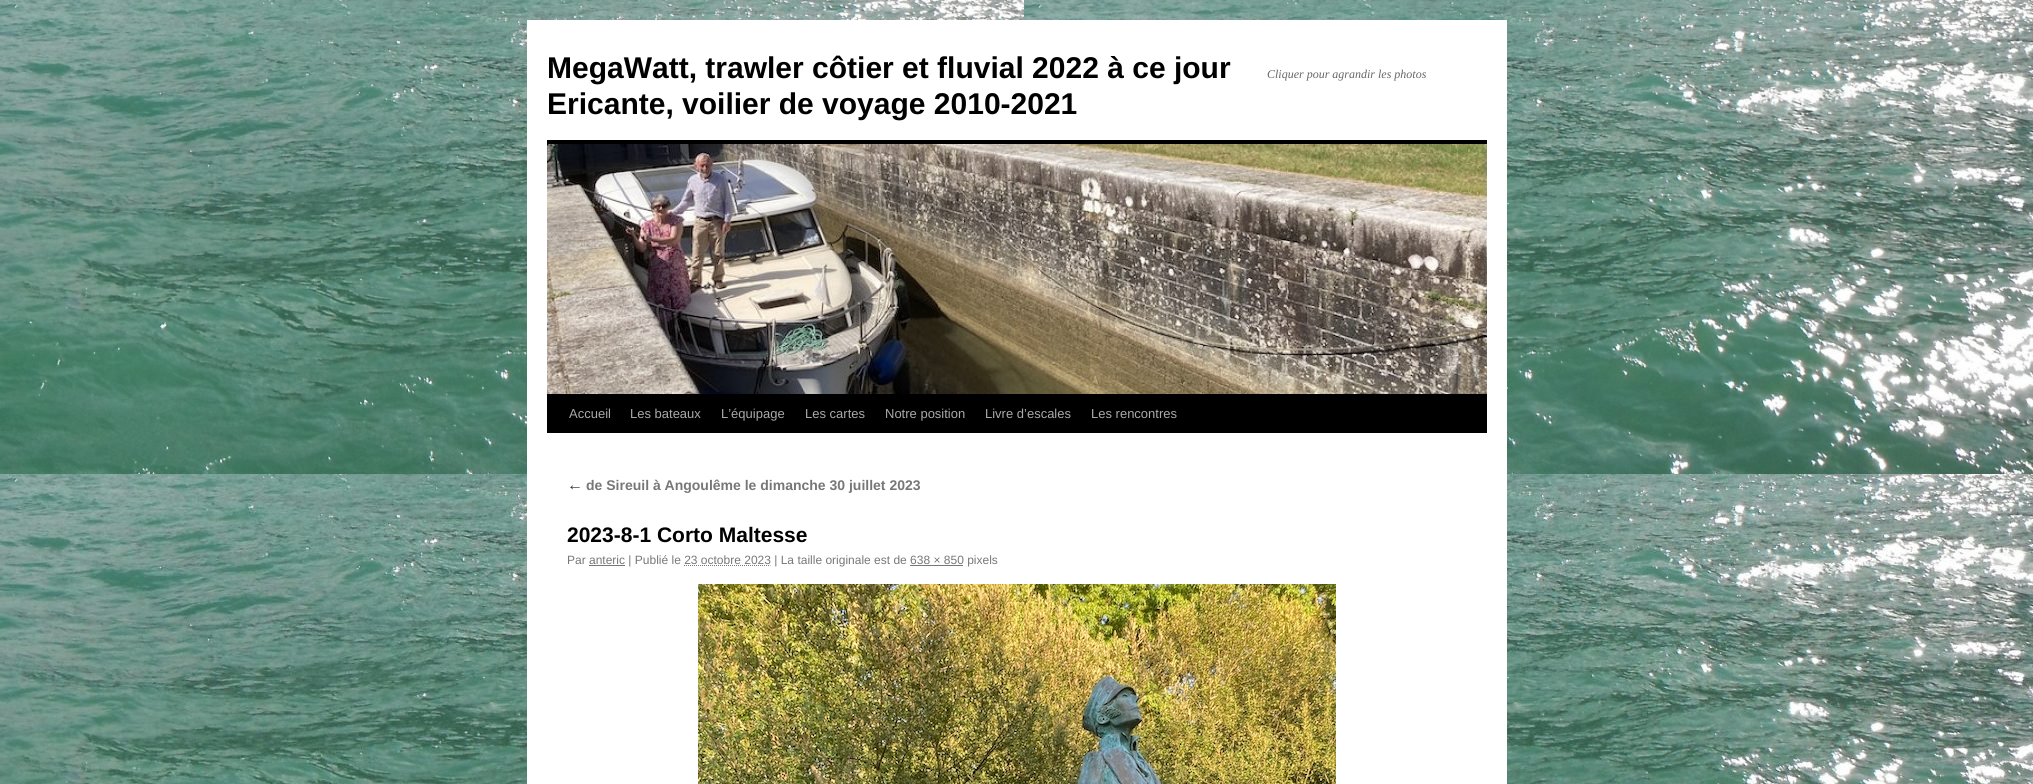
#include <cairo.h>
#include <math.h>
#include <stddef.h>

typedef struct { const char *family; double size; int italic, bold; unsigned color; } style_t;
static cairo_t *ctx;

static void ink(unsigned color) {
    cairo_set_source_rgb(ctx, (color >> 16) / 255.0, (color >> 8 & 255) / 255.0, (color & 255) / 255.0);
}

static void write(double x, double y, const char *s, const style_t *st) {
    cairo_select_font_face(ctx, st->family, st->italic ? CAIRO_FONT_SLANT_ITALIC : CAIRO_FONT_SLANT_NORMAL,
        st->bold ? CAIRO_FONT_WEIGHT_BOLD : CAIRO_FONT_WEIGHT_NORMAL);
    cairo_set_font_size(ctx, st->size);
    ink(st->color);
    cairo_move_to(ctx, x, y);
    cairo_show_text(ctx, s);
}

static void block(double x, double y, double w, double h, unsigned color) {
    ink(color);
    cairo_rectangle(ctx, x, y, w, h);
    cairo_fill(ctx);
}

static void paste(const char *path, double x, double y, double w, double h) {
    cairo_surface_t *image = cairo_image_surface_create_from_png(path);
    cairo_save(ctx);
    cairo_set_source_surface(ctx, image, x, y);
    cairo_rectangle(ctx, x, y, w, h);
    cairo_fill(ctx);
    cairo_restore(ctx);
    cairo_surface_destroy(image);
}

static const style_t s1 = {"Liberation Sans", 30, 0, 1, 0x000000};
static const style_t s2 = {"Liberation Serif", 12, 1, 0, 0x666666};
static const style_t s3 = {"Liberation Sans", 13, 0, 0, 0xaaaaaa};
static const style_t s4 = {"Liberation Serif", 16, 1, 0, 0x333333};
static const style_t s5 = {"Liberation Sans", 14, 0, 1, 0x777777};
static const style_t s6 = {"Liberation Sans", 21, 0, 1, 0x000000};
static const style_t s7 = {"Liberation Sans", 12, 0, 0, 0x777777};

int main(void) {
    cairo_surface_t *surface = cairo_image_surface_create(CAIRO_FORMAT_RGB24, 2033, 784);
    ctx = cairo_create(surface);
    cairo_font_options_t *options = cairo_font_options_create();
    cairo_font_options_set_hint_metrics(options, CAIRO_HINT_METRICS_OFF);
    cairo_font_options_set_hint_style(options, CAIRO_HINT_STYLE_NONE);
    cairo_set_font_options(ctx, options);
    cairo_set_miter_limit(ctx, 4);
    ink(0xffffff);
    cairo_paint(ctx);
    paste("pic1.png", 0, 0, 2033, 784);
    block(527, 20, 980, 764, 0xffffff);
    write(547, 78, "MegaWatt, trawler côtier et fluvial 2022 à ce jour", &s1);
    write(547, 114, "Ericante, voilier de voyage 2010-2021", &s1);
    write(1267, 78, "Cliquer pour agrandir les photos", &s2);
    block(547, 140, 940, 4, 0x000000);
    block(547, 394, 940, 39, 0x000000);
    paste("pic2.png", 547, 144, 940, 250);
    write(569, 418, "Accueil", &s3);
    write(630, 418, "Les bateaux", &s3);
    write(721, 418, "L’équipage", &s3);
    write(805, 418, "Les cartes", &s3);
    write(885, 418, "Notre position", &s3);
    write(985, 418, "Livre d’escales", &s3);
    write(1091, 418, "Les rencontres", &s3);
    write(567, 490, "←", &s4);
    write(586, 490, "de Sireuil à Angoulême le dimanche 30 juillet 2023", &s5);
    write(567, 542, "2023-8-1 Corto Maltesse", &s6);
    write(567, 564, "Par anteric | Publié le 23 octobre 2023 | La taille originale est de 638 × 850 pixels", &s7);
    block(589, 565, 36, 1, 0x777777);
    cairo_new_path(ctx);
    cairo_move_to(ctx, 684, 565.5);
    cairo_line_to(ctx, 770.5, 565.5);
    cairo_set_line_width(ctx, 1);
    cairo_set_dash(ctx, (double[]){1, 1}, 2, 0);
    cairo_stroke(ctx);
    block(910, 565, 53, 1, 0x777777);
    paste("pic3.png", 698, 584, 638, 200);
    cairo_surface_write_to_png(surface, "screenshot.png");
    cairo_font_options_destroy(options);
    cairo_destroy(ctx);
    cairo_surface_destroy(surface);
    return 0;
}
